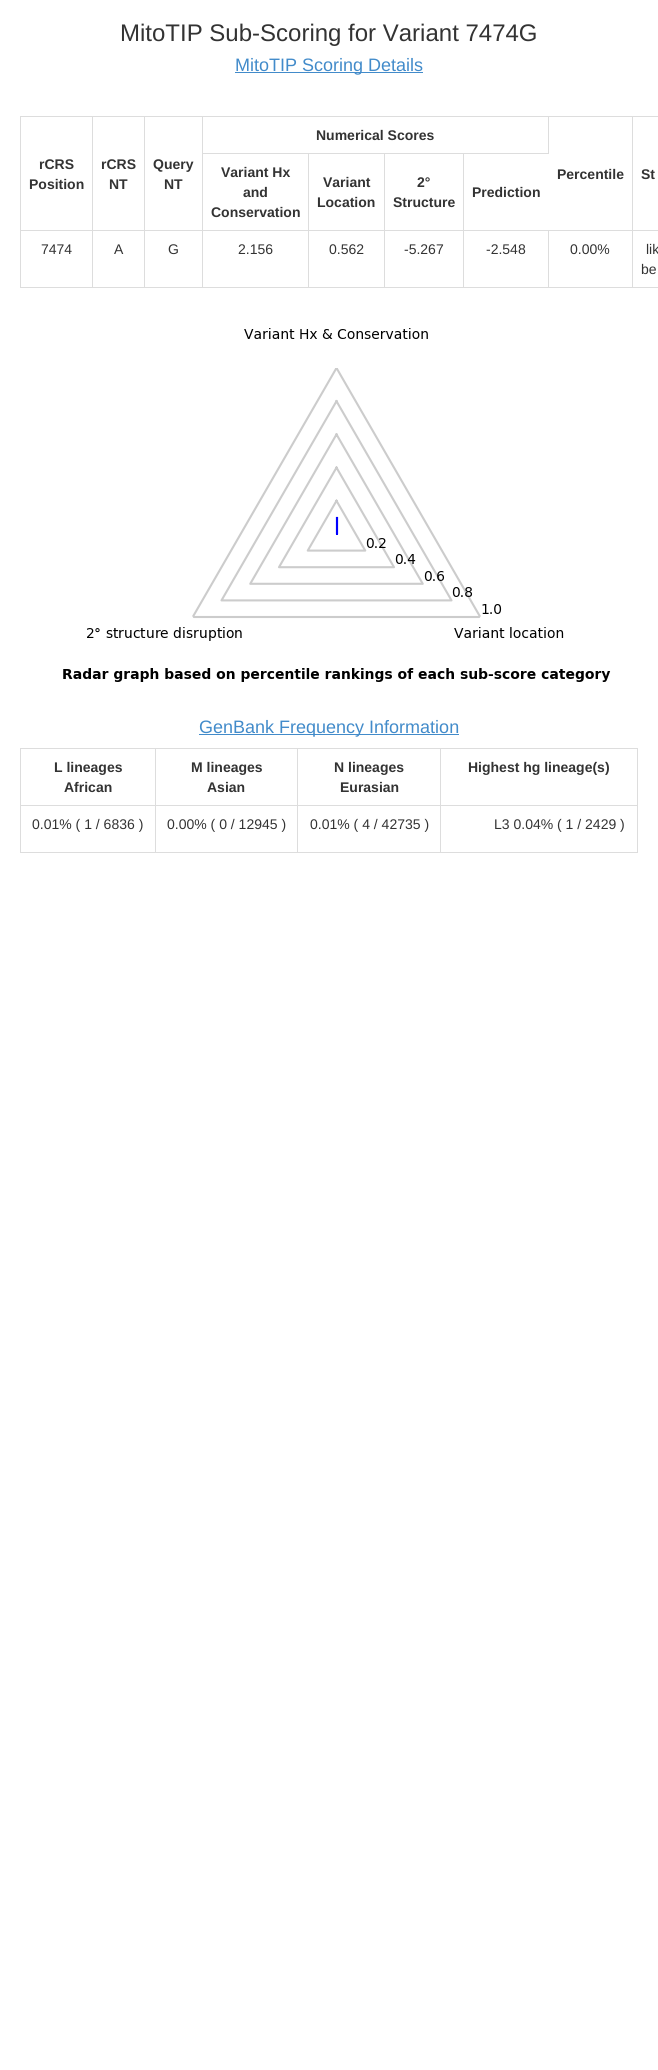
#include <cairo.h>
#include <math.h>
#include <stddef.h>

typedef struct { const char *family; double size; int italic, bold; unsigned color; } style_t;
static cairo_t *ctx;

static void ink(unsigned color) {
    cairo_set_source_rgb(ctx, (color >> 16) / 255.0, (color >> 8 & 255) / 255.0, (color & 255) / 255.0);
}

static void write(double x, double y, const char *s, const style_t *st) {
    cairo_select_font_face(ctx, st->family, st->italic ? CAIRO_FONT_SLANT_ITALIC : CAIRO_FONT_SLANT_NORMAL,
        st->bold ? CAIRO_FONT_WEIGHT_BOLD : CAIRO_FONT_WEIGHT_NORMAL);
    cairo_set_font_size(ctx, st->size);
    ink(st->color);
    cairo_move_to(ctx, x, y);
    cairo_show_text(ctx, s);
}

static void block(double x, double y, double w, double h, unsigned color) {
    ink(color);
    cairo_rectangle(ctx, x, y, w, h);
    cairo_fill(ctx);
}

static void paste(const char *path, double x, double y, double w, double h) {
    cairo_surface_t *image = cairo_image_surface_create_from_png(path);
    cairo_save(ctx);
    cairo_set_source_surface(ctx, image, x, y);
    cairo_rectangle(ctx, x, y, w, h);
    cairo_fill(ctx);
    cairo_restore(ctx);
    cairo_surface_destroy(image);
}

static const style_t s1 = {"Liberation Sans", 24, 0, 0, 0x333333};
static const style_t s2 = {"Liberation Sans", 18, 0, 0, 0x428bca};
static const style_t s3 = {"Liberation Sans", 14, 0, 1, 0x333333};
static const style_t s4 = {"Liberation Sans", 14, 0, 0, 0x333333};

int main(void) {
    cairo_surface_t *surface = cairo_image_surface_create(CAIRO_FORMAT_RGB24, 658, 2070);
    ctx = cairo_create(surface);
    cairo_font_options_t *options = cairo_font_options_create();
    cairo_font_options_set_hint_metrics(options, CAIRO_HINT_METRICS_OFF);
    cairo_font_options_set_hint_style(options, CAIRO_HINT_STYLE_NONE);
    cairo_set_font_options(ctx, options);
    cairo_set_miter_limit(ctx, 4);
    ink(0xffffff);
    cairo_paint(ctx);
    write(120, 41, "MitoTIP Sub-Scoring for Variant 7474G", &s1);
    block(235, 72, 188, 1, 0x428bca);
    write(235, 71, "MitoTIP Scoring Details", &s2);
    block(20, 116, 638, 1, 0xdddddd);
    block(20, 287, 638, 1, 0xdddddd);
    block(20, 116, 1, 172, 0xdddddd);
    block(202, 153, 347, 1, 0xdddddd);
    block(548, 116, 1, 38, 0xdddddd);
    write(316, 140, "Numerical Scores", &s3);
    write(39, 169, "rCRS", &s3);
    write(29, 189, "Position", &s3);
    write(101, 169, "rCRS", &s3);
    write(109, 189, "NT", &s3);
    block(20, 230, 638, 1, 0xdddddd);
    block(202, 230, 1, 58, 0xdddddd);
    block(202, 116, 1, 115, 0xdddddd);
    write(153, 169, "Query", &s3);
    write(164, 189, "NT", &s3);
    write(557, 179, "Percentile", &s3);
    write(641, 179, "St", &s3);
    block(308, 230, 1, 58, 0xdddddd);
    block(308, 153, 1, 78, 0xdddddd);
    write(221, 177, "Variant Hx", &s3);
    write(243, 197, "and", &s3);
    write(211, 217, "Conservation", &s3);
    block(384, 230, 1, 58, 0xdddddd);
    block(384, 153, 1, 78, 0xdddddd);
    write(323, 187, "Variant", &s3);
    write(317, 207, "Location", &s3);
    block(463, 230, 1, 58, 0xdddddd);
    block(463, 153, 1, 78, 0xdddddd);
    write(417, 187, "2°", &s3);
    write(393, 207, "Structure", &s3);
    write(472, 197, "Prediction", &s3);
    block(92, 116, 1, 172, 0xdddddd);
    write(41, 254, "7474", &s4);
    block(144, 116, 1, 172, 0xdddddd);
    write(114, 254, "A", &s4);
    write(168, 254, "G", &s4);
    write(238, 254, "2.156", &s4);
    write(329, 254, "0.562", &s4);
    write(404, 254, "-5.267", &s4);
    block(548, 230, 1, 58, 0xdddddd);
    write(486, 254, "-2.548", &s4);
    block(632, 116, 1, 172, 0xdddddd);
    write(570, 254, "0.00%", &s4);
    write(646, 254, "lik", &s4);
    write(641, 274, "be", &s4);
    paste("pic1.png", 63, 328, 548, 354);
    block(199, 734, 260, 1, 0x428bca);
    write(199, 733, "GenBank Frequency Information", &s2);
    block(20, 748, 618, 1, 0xdddddd);
    block(637, 748, 1, 105, 0xdddddd);
    block(20, 852, 618, 1, 0xdddddd);
    block(20, 748, 1, 105, 0xdddddd);
    write(54, 772, "L lineages", &s3);
    write(64, 792, "African", &s3);
    write(191, 772, "M lineages", &s3);
    write(207, 792, "Asian", &s3);
    write(334, 772, "N lineages", &s3);
    write(340, 792, "Eurasian", &s3);
    write(468, 772, "Highest hg lineage(s)", &s3);
    block(20, 805, 618, 1, 0xdddddd);
    block(155, 748, 1, 105, 0xdddddd);
    write(32, 829, "0.01% ( 1 / 6836 )", &s4);
    block(297, 748, 1, 105, 0xdddddd);
    write(167, 829, "0.00% ( 0 / 12945 )", &s4);
    block(440, 748, 1, 105, 0xdddddd);
    write(310, 829, "0.01% ( 4 / 42735 )", &s4);
    write(494, 829, "L3 0.04% ( 1 / 2429 )", &s4);
    cairo_surface_write_to_png(surface, "screenshot.png");
    cairo_font_options_destroy(options);
    cairo_destroy(ctx);
    cairo_surface_destroy(surface);
    return 0;
}
